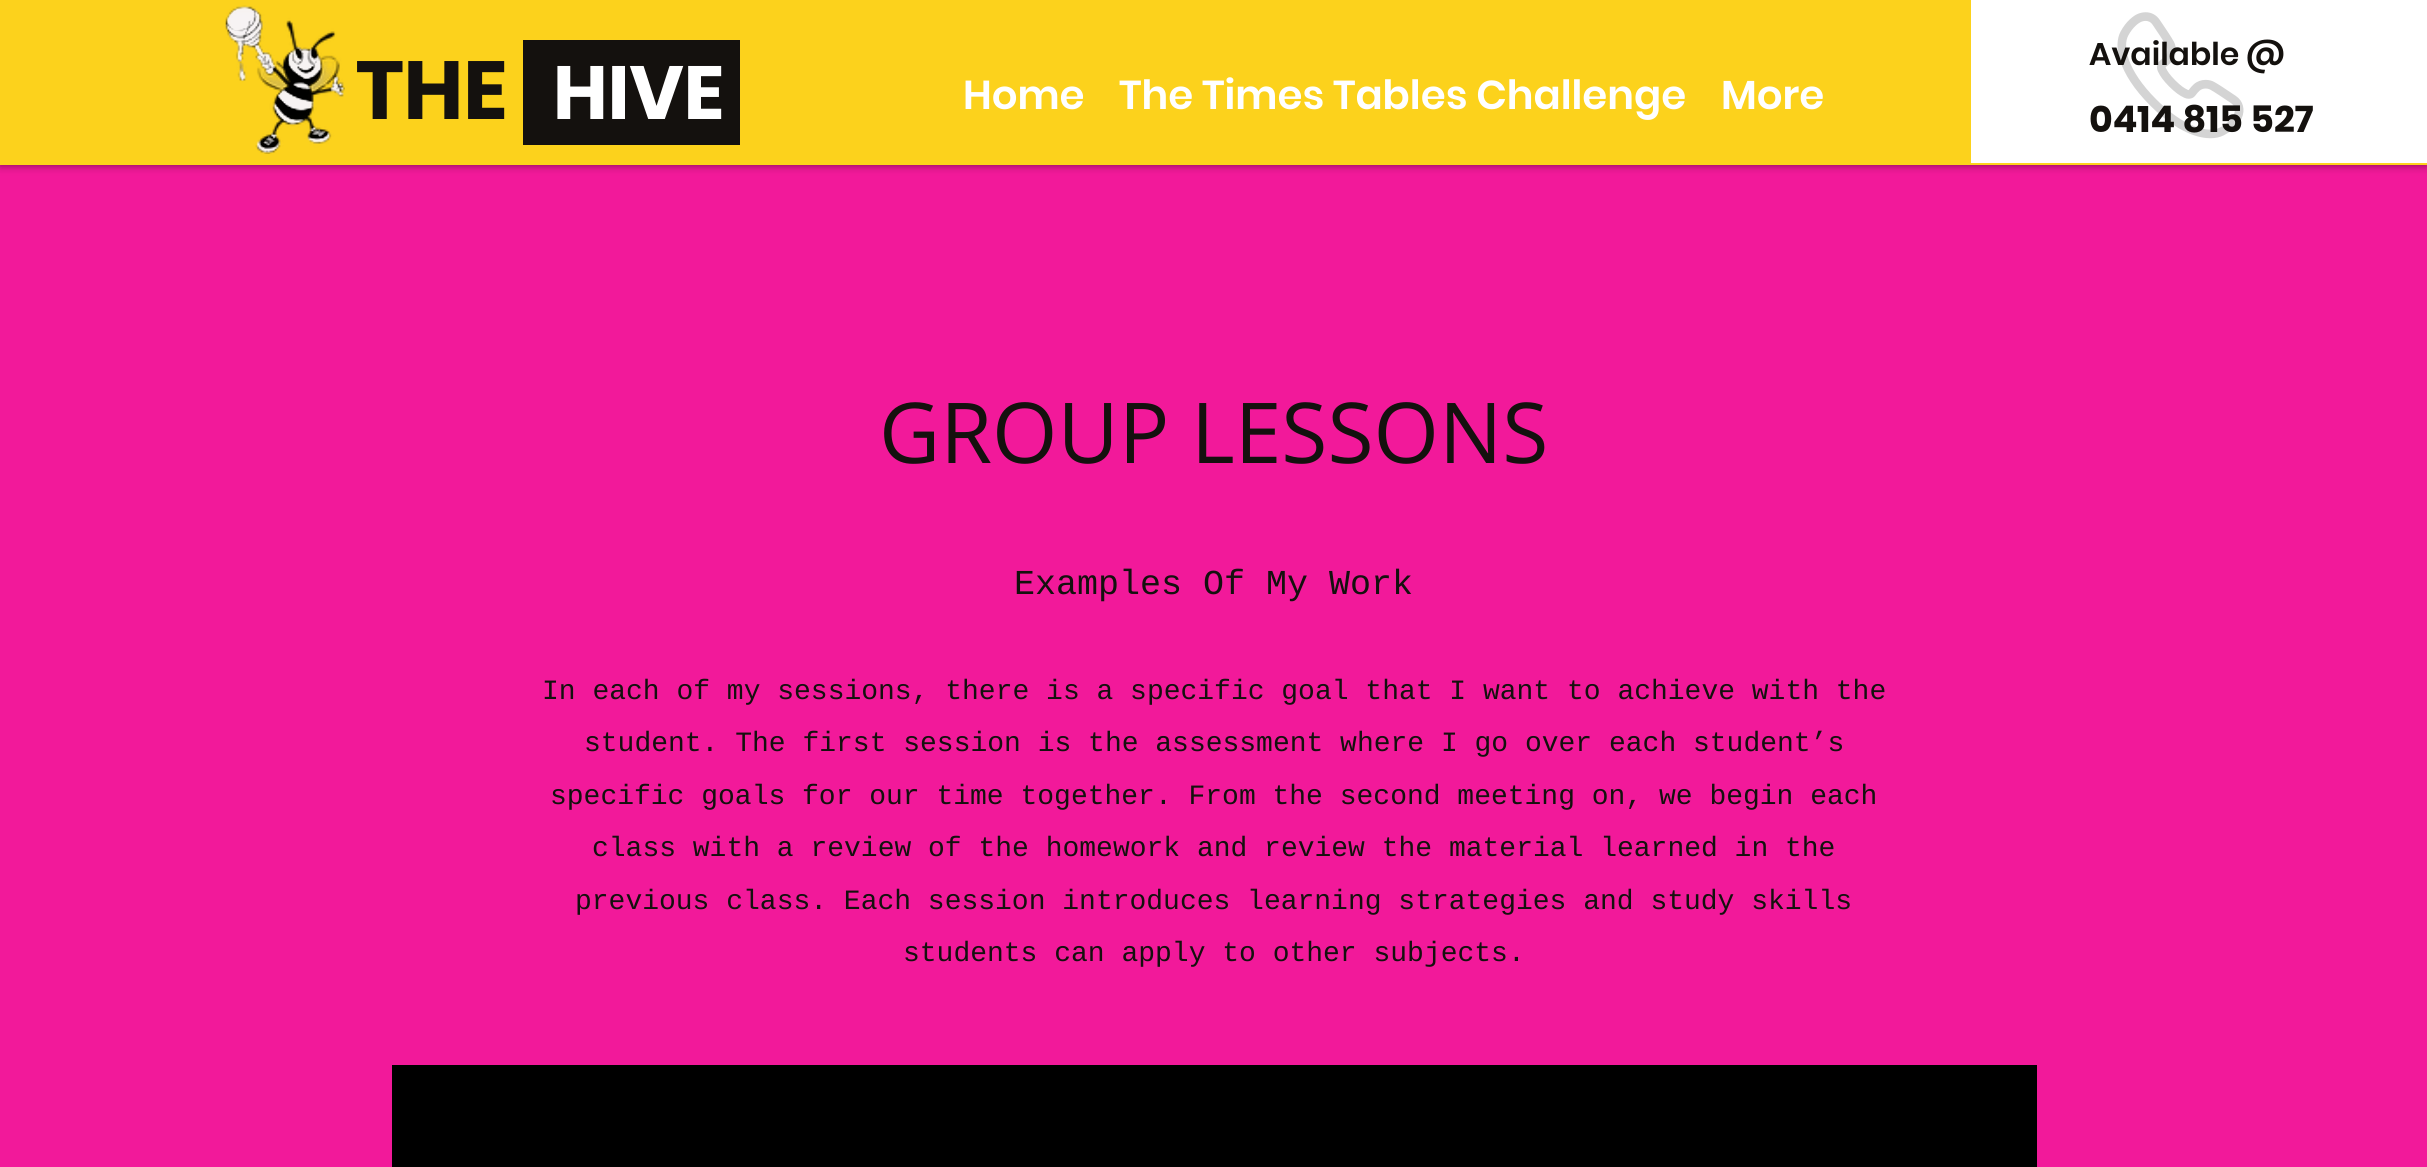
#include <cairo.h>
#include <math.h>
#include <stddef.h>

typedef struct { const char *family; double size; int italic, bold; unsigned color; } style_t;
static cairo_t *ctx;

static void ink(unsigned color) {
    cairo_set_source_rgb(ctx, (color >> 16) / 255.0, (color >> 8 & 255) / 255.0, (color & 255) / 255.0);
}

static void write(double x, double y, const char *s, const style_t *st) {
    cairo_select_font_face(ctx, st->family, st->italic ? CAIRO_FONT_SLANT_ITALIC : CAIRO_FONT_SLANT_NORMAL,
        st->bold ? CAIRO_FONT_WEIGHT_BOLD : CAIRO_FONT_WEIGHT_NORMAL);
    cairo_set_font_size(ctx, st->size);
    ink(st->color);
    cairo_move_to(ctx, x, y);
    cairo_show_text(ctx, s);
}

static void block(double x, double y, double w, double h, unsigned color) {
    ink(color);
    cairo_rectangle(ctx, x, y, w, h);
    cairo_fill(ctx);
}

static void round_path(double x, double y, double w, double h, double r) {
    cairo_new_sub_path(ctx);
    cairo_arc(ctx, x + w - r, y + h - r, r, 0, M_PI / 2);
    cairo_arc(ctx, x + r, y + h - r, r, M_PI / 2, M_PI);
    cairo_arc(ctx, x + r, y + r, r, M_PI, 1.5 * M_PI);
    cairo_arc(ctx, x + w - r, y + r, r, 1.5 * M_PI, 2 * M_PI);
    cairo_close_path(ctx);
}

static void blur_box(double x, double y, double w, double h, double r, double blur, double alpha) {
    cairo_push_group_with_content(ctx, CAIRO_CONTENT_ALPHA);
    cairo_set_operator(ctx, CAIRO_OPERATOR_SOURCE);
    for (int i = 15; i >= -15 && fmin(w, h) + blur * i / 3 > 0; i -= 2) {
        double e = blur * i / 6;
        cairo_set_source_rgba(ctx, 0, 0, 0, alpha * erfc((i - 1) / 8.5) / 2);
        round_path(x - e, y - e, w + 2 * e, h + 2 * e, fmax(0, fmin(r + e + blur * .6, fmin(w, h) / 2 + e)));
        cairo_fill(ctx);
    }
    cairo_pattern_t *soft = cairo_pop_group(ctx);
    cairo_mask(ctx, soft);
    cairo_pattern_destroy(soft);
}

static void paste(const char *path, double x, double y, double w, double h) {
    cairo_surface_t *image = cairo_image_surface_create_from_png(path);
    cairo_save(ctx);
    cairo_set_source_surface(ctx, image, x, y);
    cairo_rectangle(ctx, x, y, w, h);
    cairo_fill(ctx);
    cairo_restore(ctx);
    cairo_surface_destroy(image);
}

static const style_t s1 = {"Poppins", 82, 0, 1, 0x14110e};
static const style_t s2 = {"Poppins", 75, 0, 1, 0xffffff};
static const style_t s3 = {"Poppins SemiBold", 40.25, 0, 0, 0xffffff};
static const style_t s4 = {"Poppins SemiBold", 31.5, 0, 0, 0x14110e};
static const style_t s5 = {"Poppins", 36.75, 0, 1, 0x14110e};
static const style_t s6 = {"Open Sans", 84, 0, 0, 0x14110e};
static const style_t s7 = {"Liberation Mono", 35, 0, 0, 0x14110e};
static const style_t s8 = {"Liberation Mono", 28, 0, 0, 0x14110e};

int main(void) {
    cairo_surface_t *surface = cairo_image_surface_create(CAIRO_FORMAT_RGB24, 2427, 1167);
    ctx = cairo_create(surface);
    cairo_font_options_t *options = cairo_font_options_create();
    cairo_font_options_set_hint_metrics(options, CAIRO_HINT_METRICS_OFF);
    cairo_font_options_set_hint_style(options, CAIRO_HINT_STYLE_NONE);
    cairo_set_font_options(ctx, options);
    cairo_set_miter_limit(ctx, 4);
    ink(0xf2199a);
    cairo_paint(ctx);
    ink(0x000000);
    blur_box(0, 0, 2427, 165, 0, 4.5, 0.5);
    block(0, 0, 2427, 165, 0xfcd21c);
    paste("pic1.png", 225, 5, 120, 149);
    write(356, 119, "THE", &s1);
    block(523, 40, 217, 105, 0x14110e);
    write(553, 119, "HIVE", &s2);
    write(963, 109, "Home", &s3);
    write(1119, 109, "The Times Tables Challenge", &s3);
    write(1721, 109, "More", &s3);
    block(1971, 0, 456, 163, 0xffffff);
    paste("pic2.png", 2117, 12, 127, 127);
    write(2089, 65, "Available @", &s4);
    write(2089, 132, "0414 815 527", &s5);
    write(879, 463, "GROUP LESSONS", &s6);
    write(1014, 594, "Examples Of My Work", &s7);
    write(542, 699, "In each of my sessions, there is a specific goal that I want to achieve with the", &s8);
    write(584, 751, "student. The first session is the assessment where I go over each student’s", &s8);
    write(550, 804, "specific goals for our time together. From the second meeting on, we begin each", &s8);
    write(592, 856, "class with a review of the homework and review the material learned in the", &s8);
    write(575, 909, "previous class. Each session introduces learning strategies and study skills", &s8);
    write(903, 961, "students can apply to other subjects.", &s8);
    block(392, 1065, 1645, 102, 0x000000);
    cairo_surface_write_to_png(surface, "screenshot.png");
    cairo_font_options_destroy(options);
    cairo_destroy(ctx);
    cairo_surface_destroy(surface);
    return 0;
}
